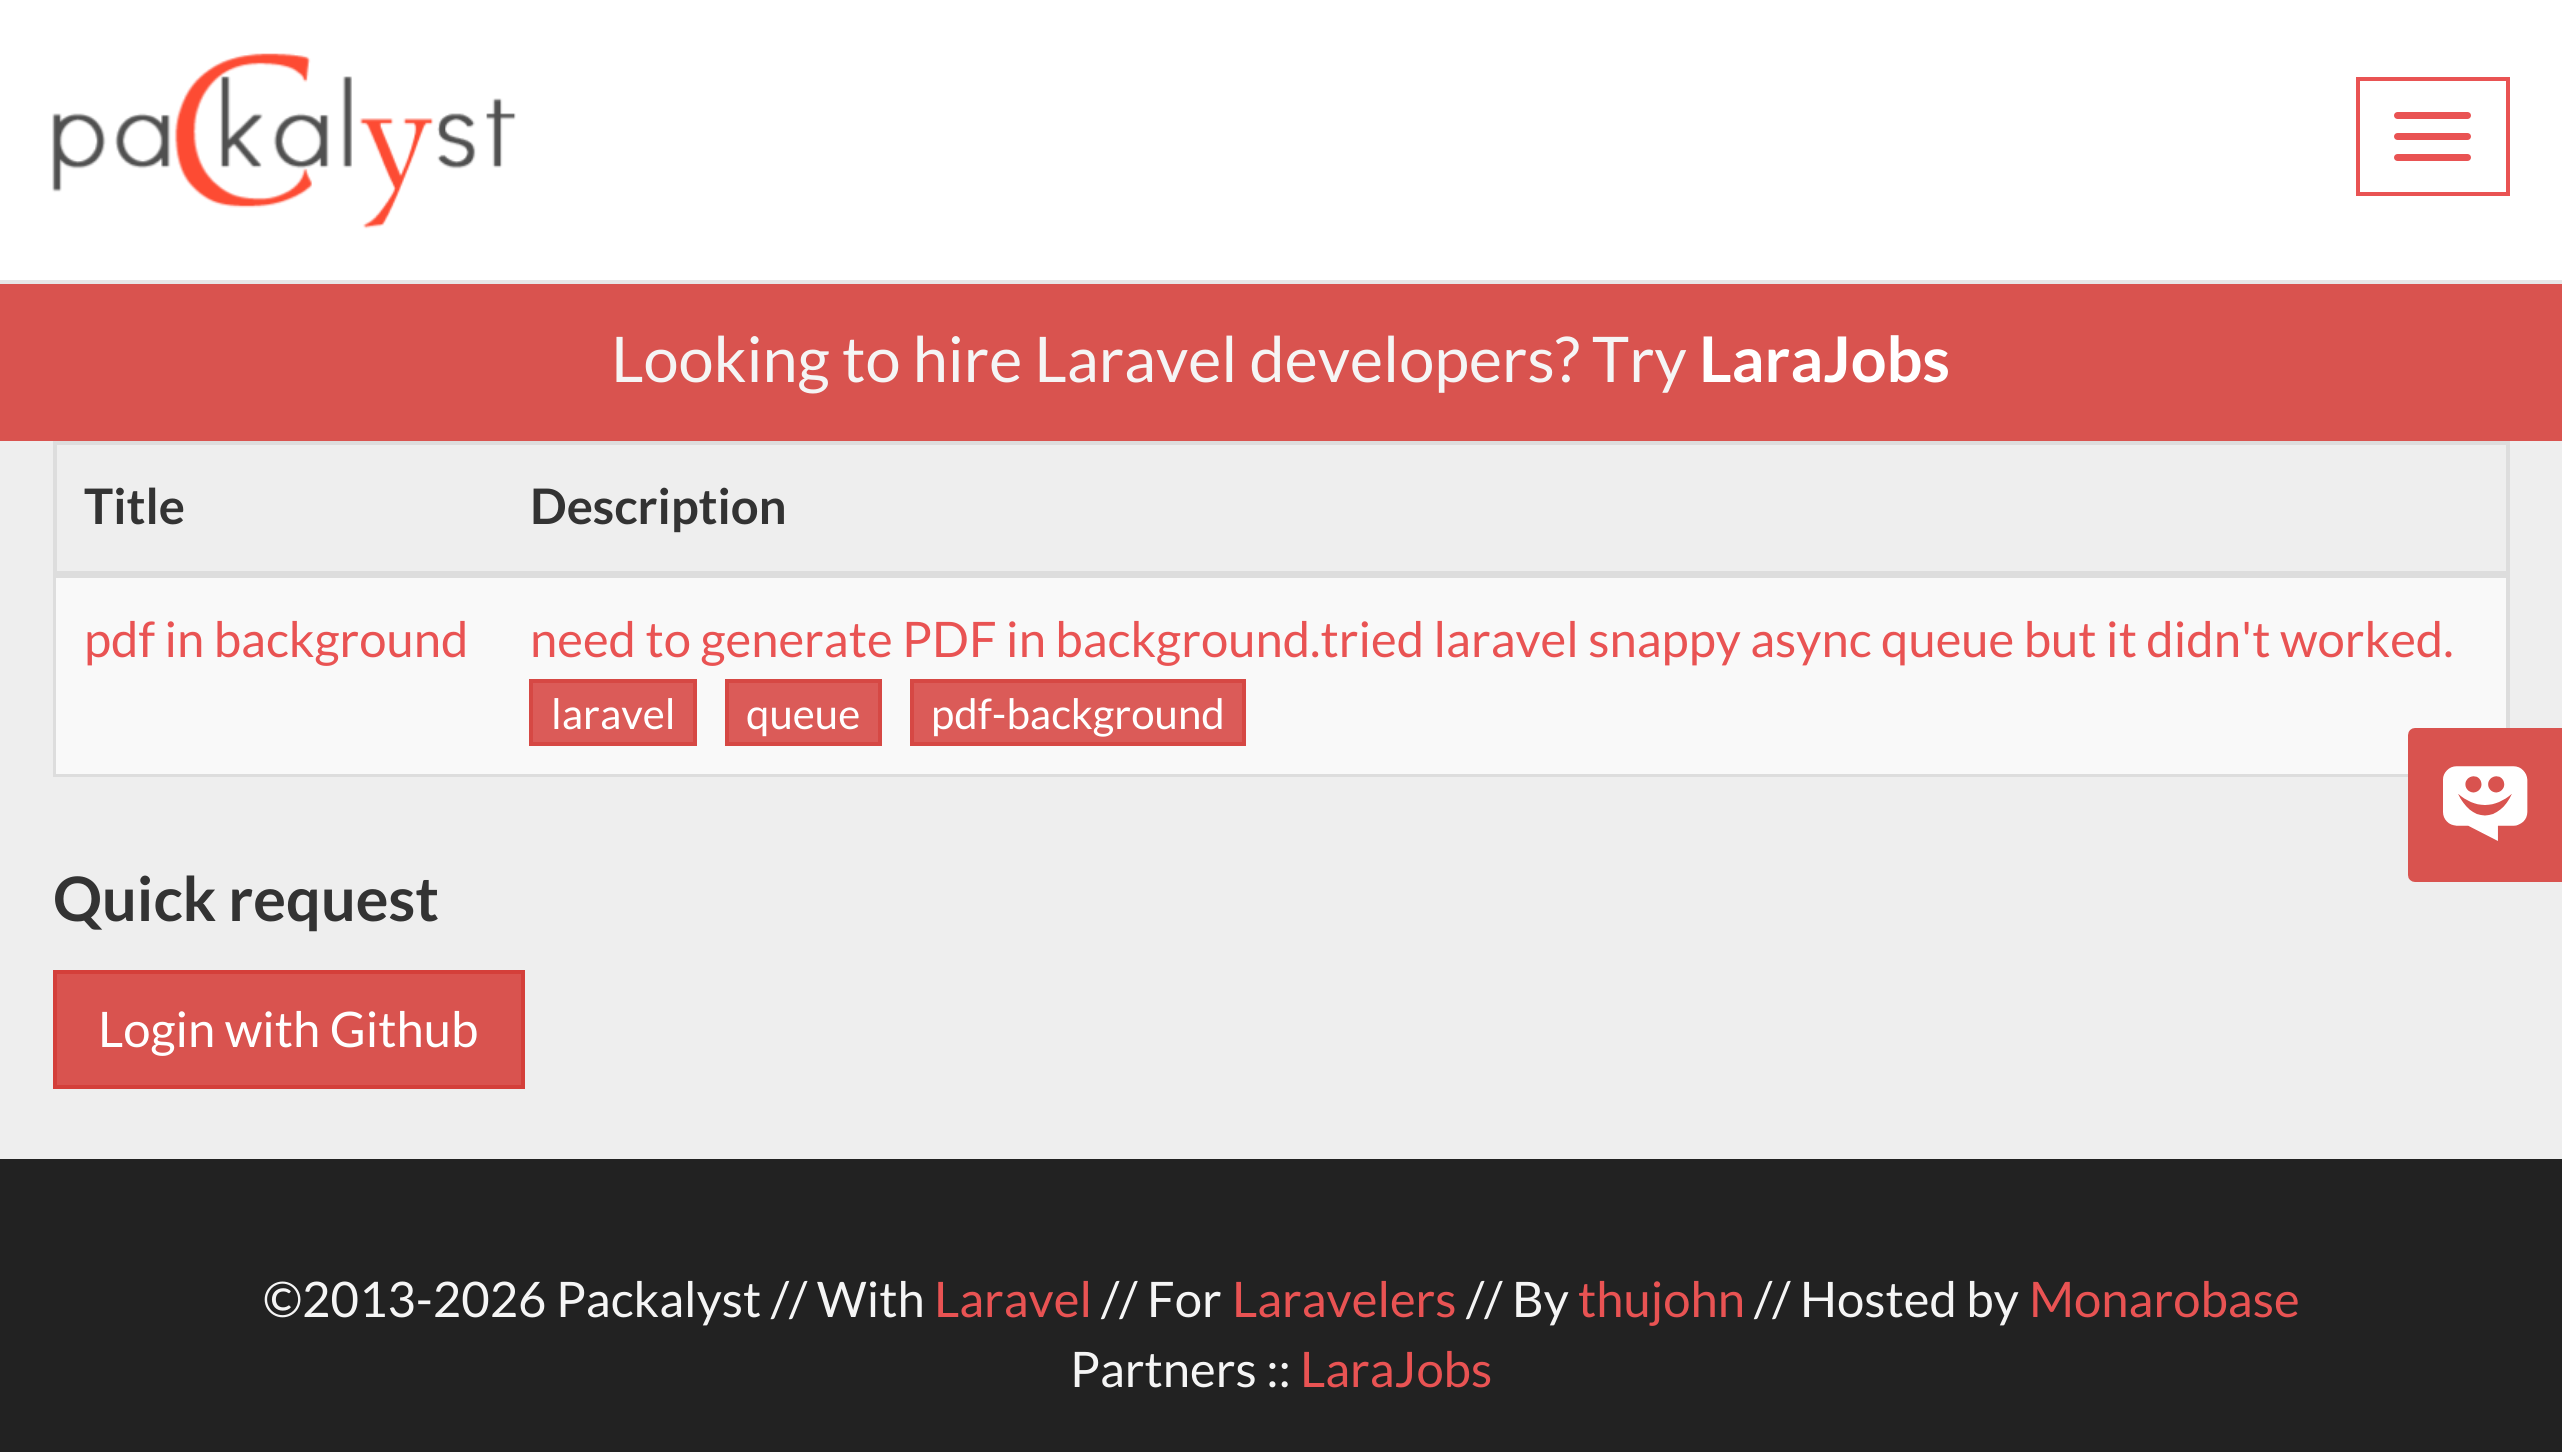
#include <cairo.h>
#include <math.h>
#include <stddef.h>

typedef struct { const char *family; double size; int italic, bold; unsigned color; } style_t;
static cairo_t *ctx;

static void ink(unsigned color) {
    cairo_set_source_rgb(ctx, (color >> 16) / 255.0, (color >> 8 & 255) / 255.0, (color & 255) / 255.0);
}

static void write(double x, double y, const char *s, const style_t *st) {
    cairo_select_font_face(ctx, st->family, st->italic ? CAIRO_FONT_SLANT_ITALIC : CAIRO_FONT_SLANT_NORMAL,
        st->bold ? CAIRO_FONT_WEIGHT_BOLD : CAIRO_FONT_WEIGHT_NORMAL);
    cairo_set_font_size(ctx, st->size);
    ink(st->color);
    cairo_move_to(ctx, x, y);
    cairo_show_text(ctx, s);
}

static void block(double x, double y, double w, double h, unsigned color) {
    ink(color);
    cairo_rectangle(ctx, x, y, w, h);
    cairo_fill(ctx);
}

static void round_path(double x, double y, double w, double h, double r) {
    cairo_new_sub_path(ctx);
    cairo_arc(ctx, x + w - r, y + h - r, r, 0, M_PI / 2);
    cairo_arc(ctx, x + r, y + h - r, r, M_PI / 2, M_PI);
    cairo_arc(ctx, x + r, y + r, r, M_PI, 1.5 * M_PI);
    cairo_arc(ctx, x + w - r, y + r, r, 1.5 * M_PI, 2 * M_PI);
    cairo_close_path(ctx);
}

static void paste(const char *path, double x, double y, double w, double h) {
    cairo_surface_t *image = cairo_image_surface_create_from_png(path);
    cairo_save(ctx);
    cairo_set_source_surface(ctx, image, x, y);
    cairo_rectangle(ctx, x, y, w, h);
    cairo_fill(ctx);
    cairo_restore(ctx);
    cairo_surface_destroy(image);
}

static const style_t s1 = {"Lato", 63, 0, 0, 0xf5f5f5};
static const style_t s2 = {"Lato", 63, 0, 1, 0xffffff};
static const style_t s3 = {"Lato", 49, 0, 1, 0x333333};
static const style_t s4 = {"Lato", 49, 0, 0, 0xe95353};
static const style_t s5 = {"Lato", 42, 0, 0, 0xffffff};
static const style_t s6 = {"Lato", 61.25, 0, 1, 0x333333};
static const style_t s7 = {"Lato", 49, 0, 0, 0xffffff};
static const style_t s8 = {"Lato", 49, 0, 0, 0xf5f5f5};

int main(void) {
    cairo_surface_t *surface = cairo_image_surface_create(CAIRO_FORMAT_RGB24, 2562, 1452);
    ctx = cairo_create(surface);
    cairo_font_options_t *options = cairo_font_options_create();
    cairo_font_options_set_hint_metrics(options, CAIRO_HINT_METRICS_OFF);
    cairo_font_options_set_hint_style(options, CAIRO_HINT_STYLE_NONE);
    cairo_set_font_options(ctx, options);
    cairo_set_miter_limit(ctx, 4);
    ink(0xd9534f);
    cairo_paint(ctx);
    block(0, 0, 2562, 280, 0xffffff);
    block(0, 280, 2562, 4, 0xe7e7e7);
    paste("pic1.png", 52, 53, 464, 176);
    cairo_rectangle(ctx, 2358, 79, 150, 115);
    ink(0xe95353);
    cairo_set_line_width(ctx, 4);
    cairo_stroke(ctx);
    round_path(2394, 112, 77, 7, 3.5);
    cairo_fill(ctx);
    round_path(2394, 133, 77, 7, 3.5);
    cairo_fill(ctx);
    round_path(2394, 154, 77, 7, 3.5);
    cairo_fill(ctx);
    write(611, 382, "Looking to hire Laravel developers? Try", &s1);
    write(1699, 382, "LaraJobs", &s2);
    block(0, 441, 2562, 718, 0xeeeeee);
    cairo_rectangle(ctx, 55, 443, 2453, 332);
    ink(0xdddddd);
    cairo_stroke(ctx);
    write(84, 524, "Title", &s3);
    block(56, 571, 2450, 7, 0xdddddd);
    write(530, 524, "Description", &s3);
    block(56, 578, 2450, 196, 0xf9f9f9);
    write(84, 657, "pdf in background", &s4);
    write(530, 657, "need to generate PDF in background.tried laravel snappy async queue but it didn't worked.", &s4);
    ink(0xdb5b58);
    cairo_rectangle(ctx, 531, 681, 164, 63);
    cairo_fill_preserve(ctx);
    ink(0xd64844);
    cairo_stroke(ctx);
    write(551, 729, "laravel", &s5);
    ink(0xdb5b58);
    cairo_rectangle(ctx, 727, 681, 153, 63);
    cairo_fill_preserve(ctx);
    ink(0xd64844);
    cairo_stroke(ctx);
    write(746, 729, "queue", &s5);
    ink(0xdb5b58);
    cairo_rectangle(ctx, 912, 681, 332, 63);
    cairo_fill_preserve(ctx);
    ink(0xd64844);
    cairo_stroke(ctx);
    write(931, 729, "pdf-background", &s5);
    write(53, 921, "Quick request", &s6);
    ink(0xd9534f);
    cairo_rectangle(ctx, 55, 972, 468, 115);
    cairo_fill_preserve(ctx);
    ink(0xd43f3a);
    cairo_stroke(ctx);
    write(98, 1047, "Login with Github", &s7);
    paste("pic2.png", 2408, 728, 154, 154);
    block(0, 1159, 2562, 293, 0x222222);
    write(263, 1317, "©2013-2026 Packalyst // With", &s8);
    write(934, 1317, "Laravel", &s4);
    write(1101, 1317, "// For", &s8);
    write(1232, 1317, "Laravelers", &s4);
    write(1466, 1317, "// By", &s8);
    write(1578, 1317, "thujohn", &s4);
    write(1754, 1317, "// Hosted by", &s8);
    write(2029, 1317, "Monarobase", &s4);
    write(1070, 1387, "Partners ::", &s8);
    write(1300, 1387, "LaraJobs", &s4);
    cairo_surface_write_to_png(surface, "screenshot.png");
    cairo_font_options_destroy(options);
    cairo_destroy(ctx);
    cairo_surface_destroy(surface);
    return 0;
}
